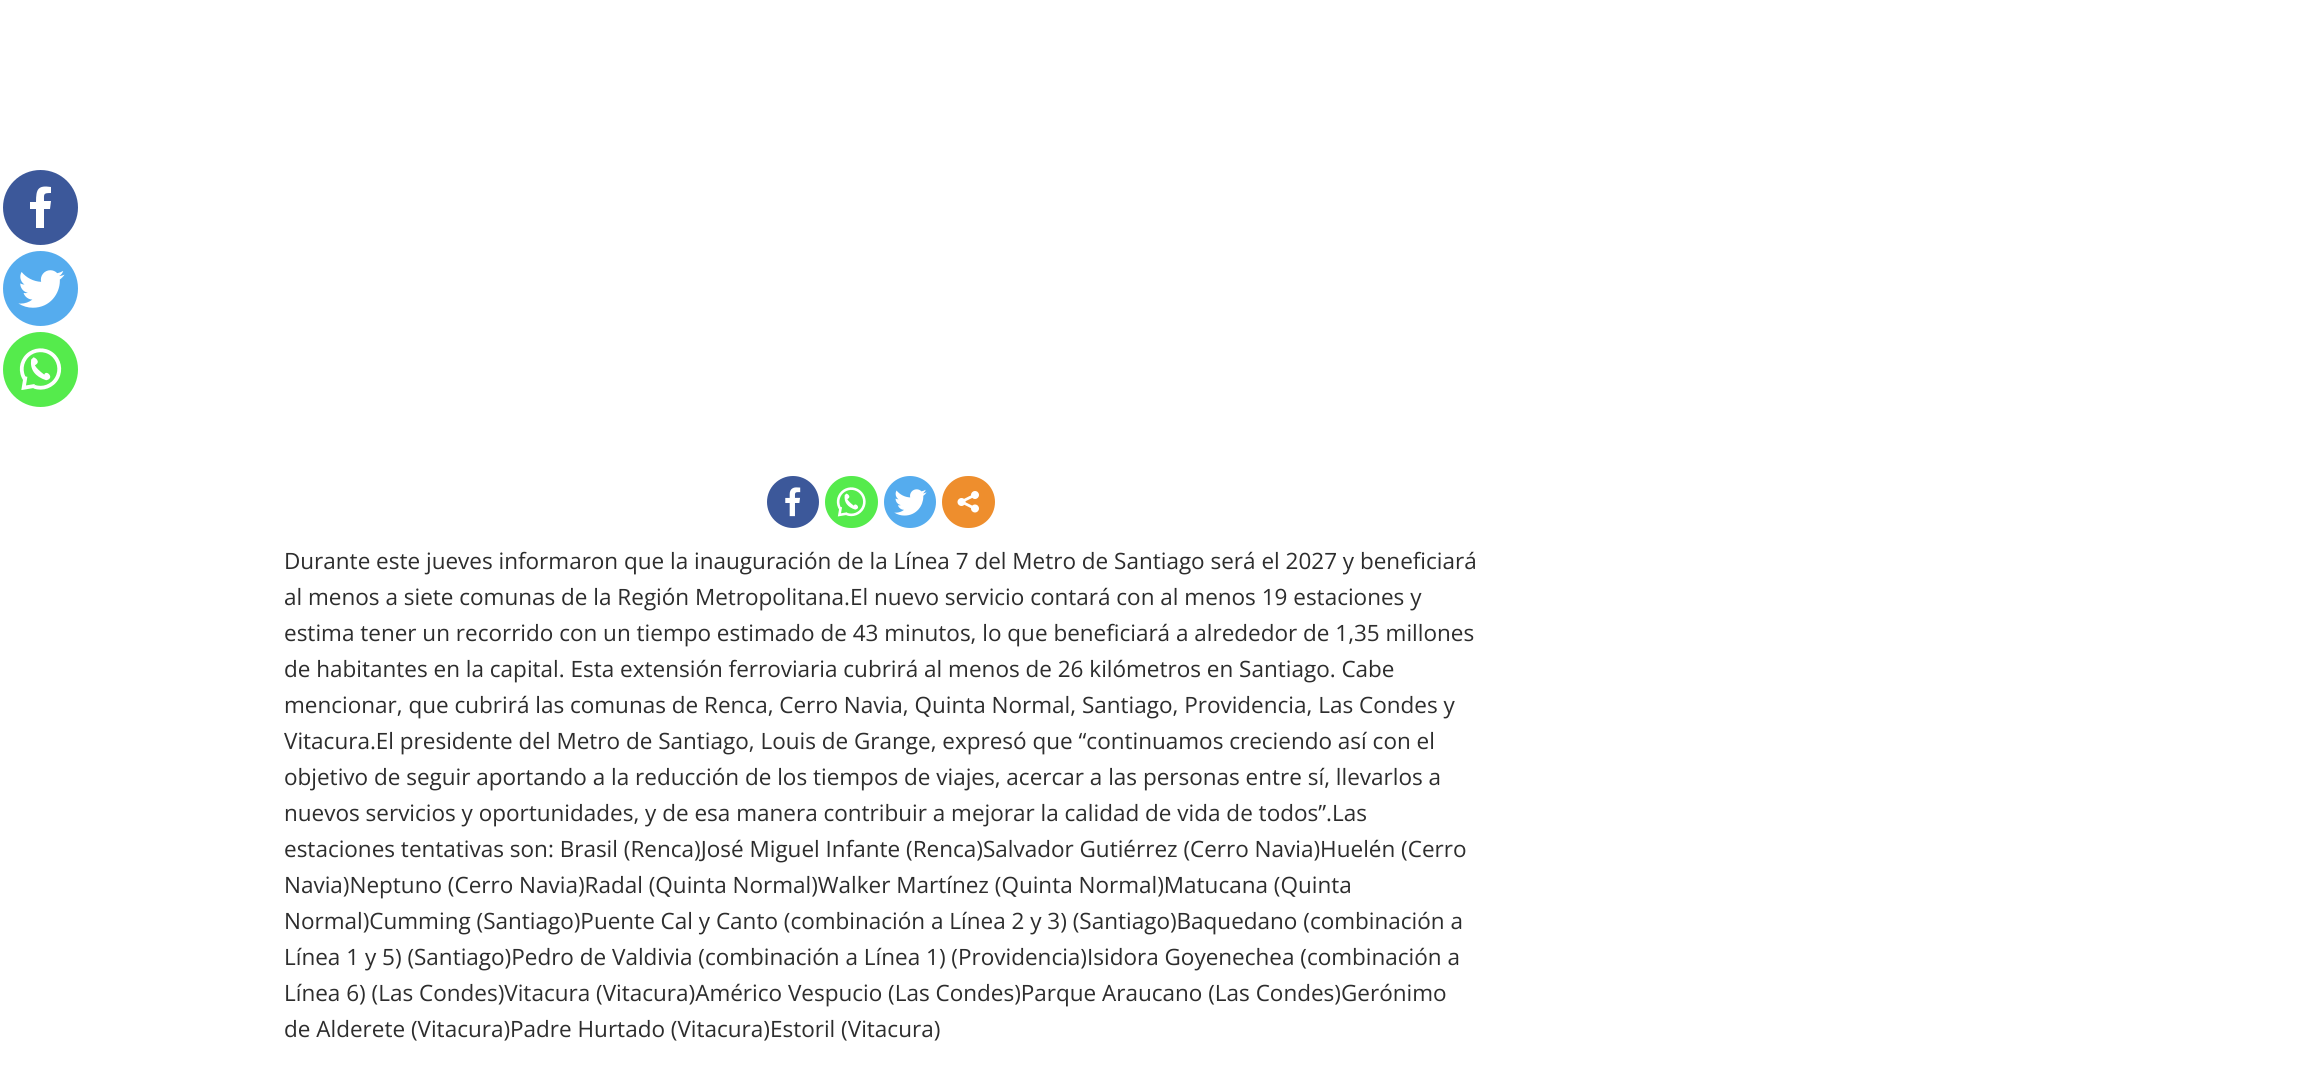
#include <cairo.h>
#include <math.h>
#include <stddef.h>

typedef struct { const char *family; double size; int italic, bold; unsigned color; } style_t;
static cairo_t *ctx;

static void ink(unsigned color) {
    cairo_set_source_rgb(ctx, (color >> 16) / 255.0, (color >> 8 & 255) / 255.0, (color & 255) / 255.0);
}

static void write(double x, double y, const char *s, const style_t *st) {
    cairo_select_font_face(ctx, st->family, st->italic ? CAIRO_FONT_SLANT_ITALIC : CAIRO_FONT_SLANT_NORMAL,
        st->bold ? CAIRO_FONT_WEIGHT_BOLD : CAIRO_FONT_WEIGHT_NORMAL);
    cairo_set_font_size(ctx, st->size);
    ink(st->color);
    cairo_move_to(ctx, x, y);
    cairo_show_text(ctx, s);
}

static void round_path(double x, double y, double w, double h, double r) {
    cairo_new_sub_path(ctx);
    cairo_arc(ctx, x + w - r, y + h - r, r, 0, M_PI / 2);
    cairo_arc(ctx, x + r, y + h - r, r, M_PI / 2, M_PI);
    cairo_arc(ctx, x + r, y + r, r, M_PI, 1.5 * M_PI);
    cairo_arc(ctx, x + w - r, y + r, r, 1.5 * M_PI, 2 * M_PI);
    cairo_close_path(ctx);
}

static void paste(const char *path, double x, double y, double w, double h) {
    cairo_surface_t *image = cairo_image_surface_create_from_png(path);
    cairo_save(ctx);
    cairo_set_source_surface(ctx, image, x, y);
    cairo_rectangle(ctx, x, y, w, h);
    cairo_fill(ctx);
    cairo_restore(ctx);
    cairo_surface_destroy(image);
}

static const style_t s1 = {"Open Sans", 22.5, 0, 0, 0x2d2d2d};

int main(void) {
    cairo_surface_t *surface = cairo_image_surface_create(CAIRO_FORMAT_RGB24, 2322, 1070);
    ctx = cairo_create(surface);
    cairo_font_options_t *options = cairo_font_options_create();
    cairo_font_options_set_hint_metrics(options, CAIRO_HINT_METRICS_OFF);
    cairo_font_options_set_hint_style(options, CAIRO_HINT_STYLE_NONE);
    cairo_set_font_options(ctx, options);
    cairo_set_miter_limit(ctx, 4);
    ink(0xffffff);
    cairo_paint(ctx);
    ink(0x3c589a);
    cairo_arc(ctx, 40.5, 207.5, 37.5, 0, 2 * M_PI);
    cairo_fill(ctx);
    ink(0xffffff);
    cairo_new_path(ctx);
    cairo_move_to(ctx, 44, 228);
    cairo_line_to(ctx, 44, 209);
    cairo_line_to(ctx, 50, 209);
    cairo_line_to(ctx, 51, 201);
    cairo_line_to(ctx, 44, 201);
    cairo_curve_to(ctx, 44, 194, 43, 193, 51, 193);
    cairo_line_to(ctx, 51, 187);
    cairo_curve_to(ctx, 38, 185, 36, 189, 36, 202);
    cairo_line_to(ctx, 30, 202);
    cairo_line_to(ctx, 30, 209);
    cairo_line_to(ctx, 36, 209);
    cairo_line_to(ctx, 36, 228);
    cairo_close_path(ctx);
    cairo_fill(ctx);
    ink(0x55acee);
    cairo_arc(ctx, 40.5, 288.5, 37.5, 0, 2 * M_PI);
    cairo_fill(ctx);
    paste("pic1.png", 18, 270, 47, 38);
    ink(0x55eb4c);
    cairo_arc(ctx, 40.5, 369.5, 37.5, 0, 2 * M_PI);
    cairo_fill(ctx);
    paste("pic2.png", 19, 348, 43, 42);
    ink(0x3c589a);
    cairo_arc(ctx, 793, 502, 26, 0, 2 * M_PI);
    cairo_fill(ctx);
    paste("pic3.png", 785, 487, 16, 30);
    ink(0x55eb4c);
    round_path(825, 476, 53, 52, 26);
    cairo_fill(ctx);
    paste("pic4.png", 836, 487, 30, 30);
    ink(0x55acee);
    cairo_arc(ctx, 910, 502, 26, 0, 2 * M_PI);
    cairo_fill(ctx);
    paste("pic5.png", 894, 489, 33, 27);
    ink(0xee8e2d);
    round_path(942, 476, 53, 52, 26);
    cairo_fill(ctx);
    paste("pic6.png", 957, 491, 22, 22);
    write(284, 569, "Durante este jueves informaron que la inauguración de la Línea 7 del Metro de Santiago será el 2027 y beneficiará", &s1);
    write(284, 605, "al menos a siete comunas de la Región Metropolitana.El nuevo servicio contará con al menos 19 estaciones y", &s1);
    write(284, 641, "estima tener un recorrido con un tiempo estimado de 43 minutos, lo que beneficiará a alrededor de 1,35 millones", &s1);
    write(284, 677, "de habitantes en la capital. Esta extensión ferroviaria cubrirá al menos de 26 kilómetros en Santiago. Cabe", &s1);
    write(284, 713, "mencionar, que cubrirá las comunas de Renca, Cerro Navia, Quinta Normal, Santiago, Providencia, Las Condes y", &s1);
    write(284, 749, "Vitacura.El presidente del Metro de Santiago, Louis de Grange, expresó que “continuamos creciendo así con el", &s1);
    write(284, 785, "objetivo de seguir aportando a la reducción de los tiempos de viajes, acercar a las personas entre sí, llevarlos a", &s1);
    write(284, 821, "nuevos servicios y oportunidades, y de esa manera contribuir a mejorar la calidad de vida de todos”.Las", &s1);
    write(284, 857, "estaciones tentativas son: Brasil (Renca)José Miguel Infante (Renca)Salvador Gutiérrez (Cerro Navia)Huelén (Cerro", &s1);
    write(284, 893, "Navia)Neptuno (Cerro Navia)Radal (Quinta Normal)Walker Martínez (Quinta Normal)Matucana (Quinta", &s1);
    write(284, 929, "Normal)Cumming (Santiago)Puente Cal y Canto (combinación a Línea 2 y 3) (Santiago)Baquedano (combinación a", &s1);
    write(284, 965, "Línea 1 y 5) (Santiago)Pedro de Valdivia (combinación a Línea 1) (Providencia)Isidora Goyenechea (combinación a", &s1);
    write(284, 1001, "Línea 6) (Las Condes)Vitacura (Vitacura)Américo Vespucio (Las Condes)Parque Araucano (Las Condes)Gerónimo", &s1);
    write(284, 1037, "de Alderete (Vitacura)Padre Hurtado (Vitacura)Estoril (Vitacura)", &s1);
    cairo_surface_write_to_png(surface, "screenshot.png");
    cairo_font_options_destroy(options);
    cairo_destroy(ctx);
    cairo_surface_destroy(surface);
    return 0;
}
